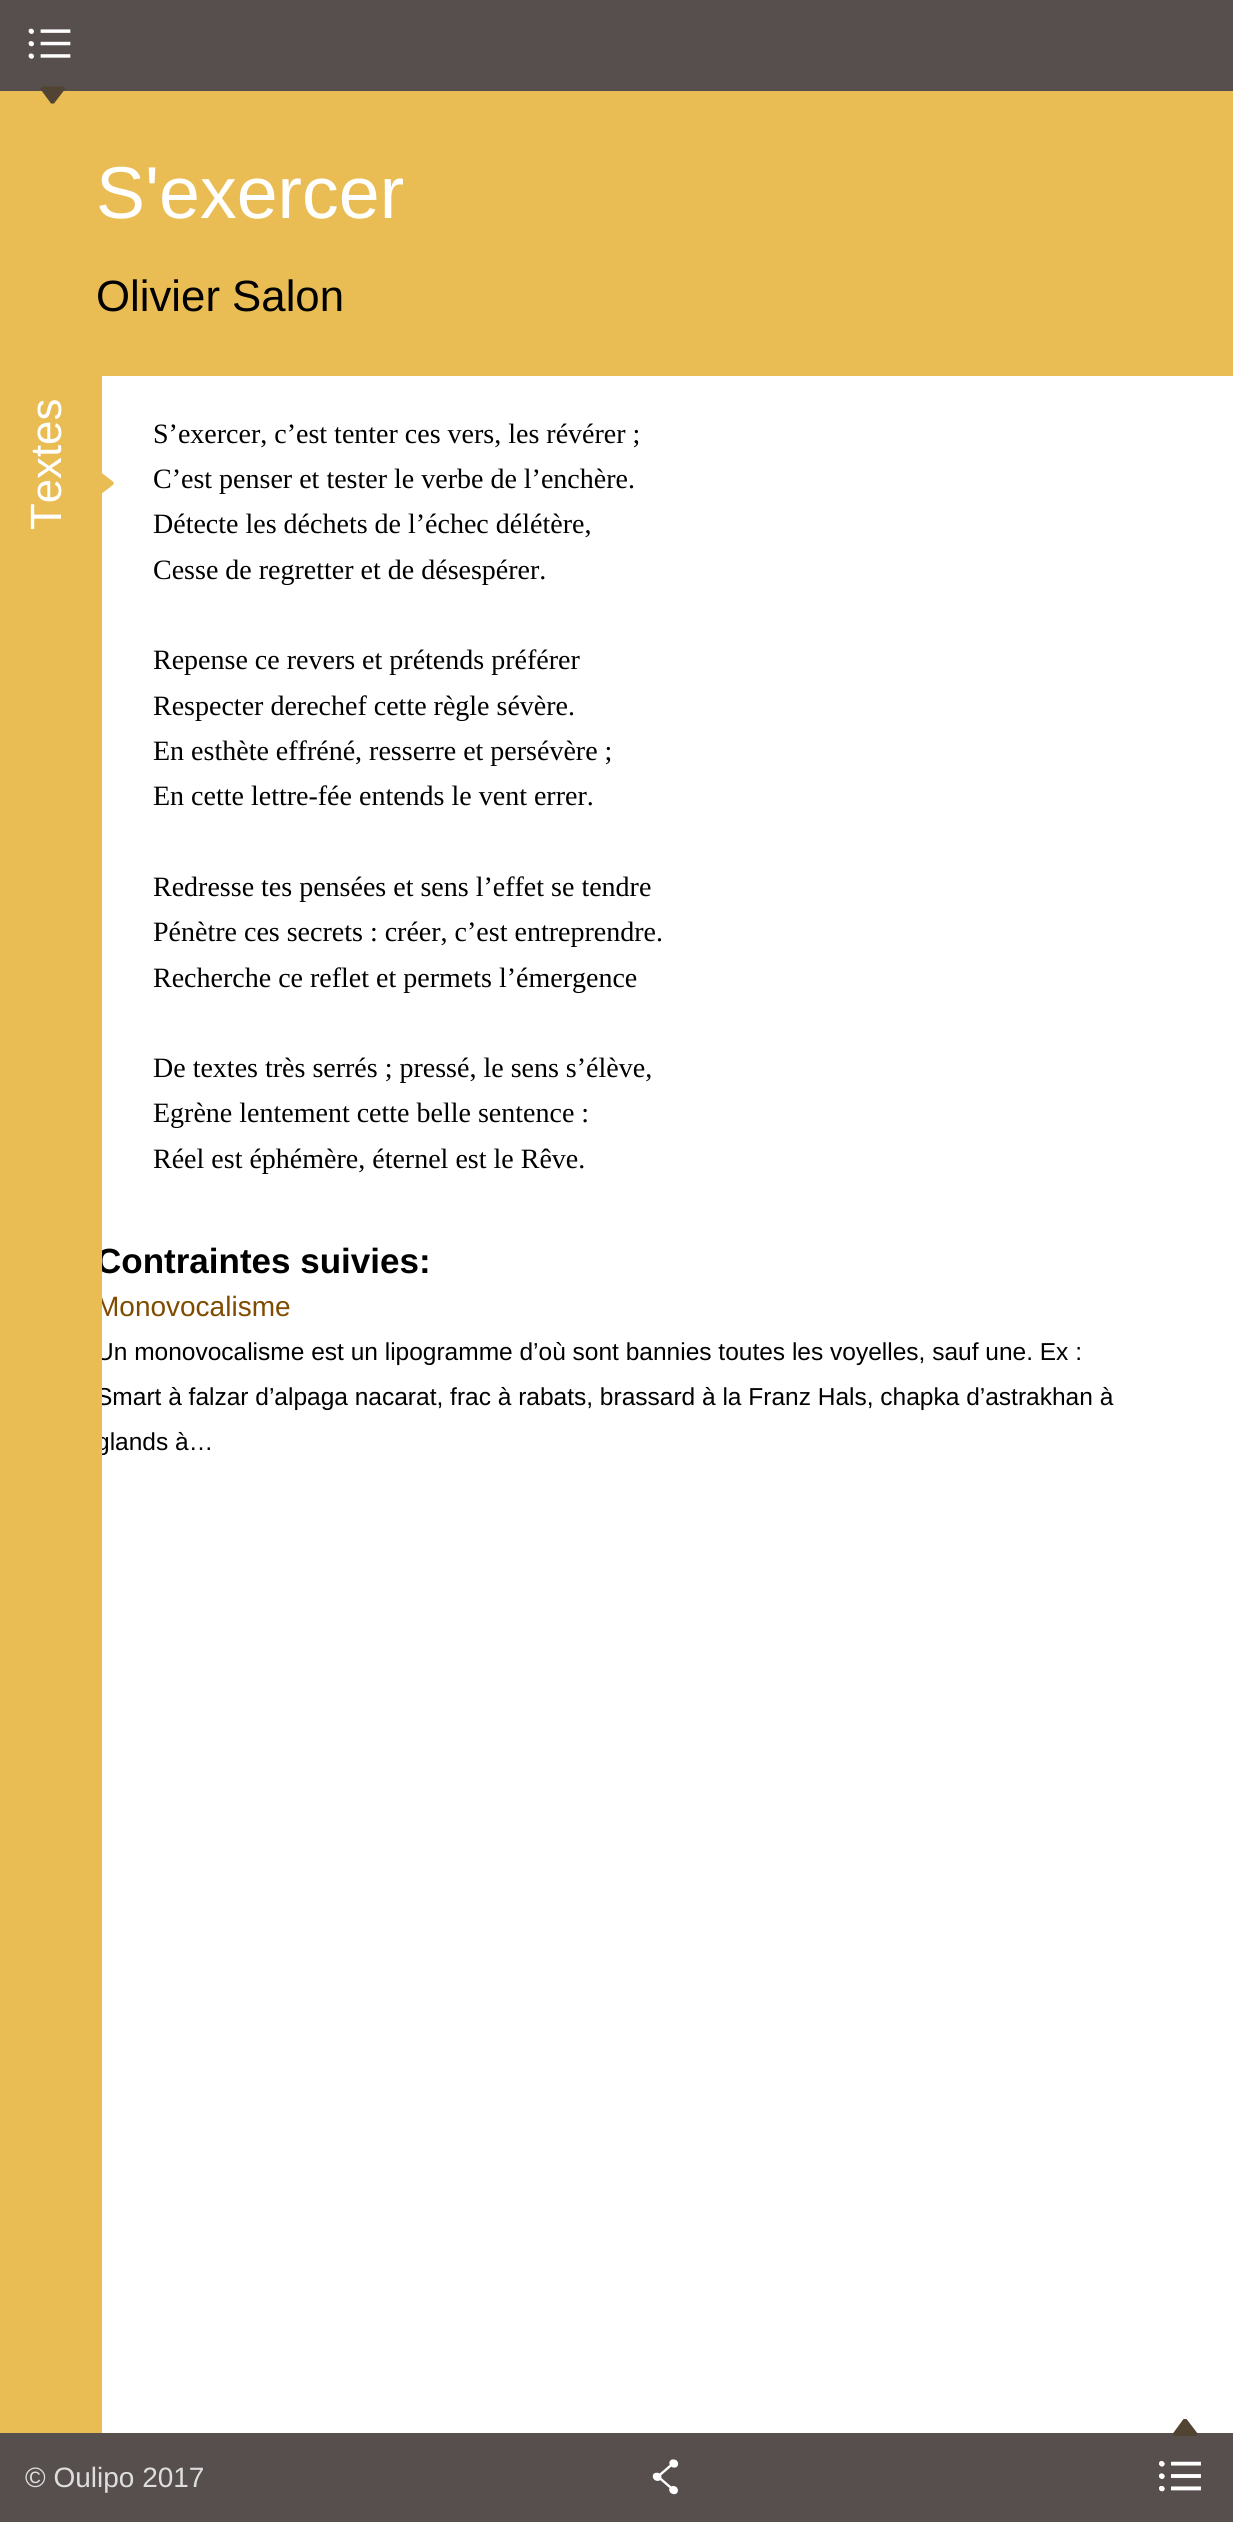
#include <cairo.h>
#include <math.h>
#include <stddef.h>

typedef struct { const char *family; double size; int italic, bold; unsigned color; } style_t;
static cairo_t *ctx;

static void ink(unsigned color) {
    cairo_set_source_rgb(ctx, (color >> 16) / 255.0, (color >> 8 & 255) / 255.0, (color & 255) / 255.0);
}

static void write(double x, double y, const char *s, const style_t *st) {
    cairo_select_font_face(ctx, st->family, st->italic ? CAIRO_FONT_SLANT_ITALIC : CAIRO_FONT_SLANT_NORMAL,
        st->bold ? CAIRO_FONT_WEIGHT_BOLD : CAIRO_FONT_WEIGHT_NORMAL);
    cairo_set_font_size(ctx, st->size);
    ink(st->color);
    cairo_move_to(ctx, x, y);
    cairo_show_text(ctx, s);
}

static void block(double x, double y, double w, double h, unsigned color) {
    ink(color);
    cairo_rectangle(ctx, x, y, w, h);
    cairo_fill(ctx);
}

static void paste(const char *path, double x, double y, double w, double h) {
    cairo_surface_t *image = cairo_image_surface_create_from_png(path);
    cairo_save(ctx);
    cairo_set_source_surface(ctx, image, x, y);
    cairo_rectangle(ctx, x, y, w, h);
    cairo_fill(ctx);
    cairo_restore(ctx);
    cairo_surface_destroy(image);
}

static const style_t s1 = {"Liberation Sans", 73.5, 0, 0, 0xffffff};
static const style_t s2 = {"Liberation Sans", 43.75, 0, 0, 0x000000};
static const style_t s3 = {"Liberation Sans", 35, 0, 1, 0x000000};
static const style_t s4 = {"Liberation Sans", 28, 0, 0, 0x804b00};
static const style_t s5 = {"Liberation Sans", 24.5, 0, 0, 0x000000};
static const style_t s6 = {"Liberation Sans", 43.75, 0, 0, 0xffffff};
static const style_t s7 = {"Liberation Serif", 28, 0, 0, 0x000000};
static const style_t s8 = {"Liberation Sans", 28, 0, 0, 0xdedede};

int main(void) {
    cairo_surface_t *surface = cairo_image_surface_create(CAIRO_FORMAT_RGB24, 1233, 2522);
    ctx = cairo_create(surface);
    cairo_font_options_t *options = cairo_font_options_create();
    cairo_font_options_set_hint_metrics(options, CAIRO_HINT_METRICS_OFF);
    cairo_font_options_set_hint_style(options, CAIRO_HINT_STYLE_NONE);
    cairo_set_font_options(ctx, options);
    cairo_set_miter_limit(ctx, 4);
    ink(0xffffff);
    cairo_paint(ctx);
    block(0, 0, 1233, 91, 0x574e4e);
    paste("pic1.png", 28, 28, 43, 31);
    block(0, 91, 1233, 285, 0xe9bc54);
    ink(0x524432);
    cairo_new_path(ctx);
    cairo_move_to(ctx, 51, 103.5);
    cairo_line_to(ctx, 40, 88.5);
    cairo_line_to(ctx, 42, 86.5);
    cairo_line_to(ctx, 63.5, 86.5);
    cairo_line_to(ctx, 65.5, 88.5);
    cairo_line_to(ctx, 54, 103.5);
    cairo_close_path(ctx);
    cairo_fill(ctx);
    write(96, 218, "S'exercer", &s1);
    write(96, 311, "Olivier Salon", &s2);
    write(96, 1273, "Contraintes suivies:", &s3);
    write(96, 1316, "Monovocalisme", &s4);
    write(96, 1360, "Un monovocalisme est un lipogramme d’où sont bannies toutes les voyelles, sauf une. Ex :", &s5);
    write(96, 1405, "Smart à falzar d’alpaga nacarat, frac à rabats, brassard à la Franz Hals, chapka d’astrakhan à", &s5);
    write(96, 1450, "glands à…", &s5);
    block(0, 376, 102, 2057, 0xe9bc54);
    cairo_save(ctx);
    cairo_translate(ctx, 61, 530);
    cairo_rotate(ctx, -90 * M_PI / 180);
    write(0, 0, "Textes", &s6);
    cairo_restore(ctx);
    ink(0xe9bc54);
    cairo_new_path(ctx);
    cairo_move_to(ctx, 113.5, 484.5);
    cairo_line_to(ctx, 98.5, 496);
    cairo_line_to(ctx, 96.5, 494);
    cairo_line_to(ctx, 96.5, 472.5);
    cairo_line_to(ctx, 98.5, 470.5);
    cairo_line_to(ctx, 113.5, 482);
    cairo_close_path(ctx);
    cairo_fill(ctx);
    write(153, 443, "S’exercer, c’est tenter ces vers, les révérer ;", &s7);
    write(153, 488, "C’est penser et tester le verbe de l’enchère.", &s7);
    write(153, 533, "Détecte les déchets de l’échec délétère,", &s7);
    write(153, 579, "Cesse de regretter et de désespérer.", &s7);
    write(153, 669, "Repense ce revers et prétends préférer", &s7);
    write(153, 715, "Respecter derechef cette règle sévère.", &s7);
    write(153, 760, "En esthète effréné, resserre et persévère ;", &s7);
    write(153, 805, "En cette lettre-fée entends le vent errer.", &s7);
    write(153, 896, "Redresse tes pensées et sens l’effet se tendre", &s7);
    write(153, 941, "Pénètre ces secrets : créer, c’est entreprendre.", &s7);
    write(153, 987, "Recherche ce reflet et permets l’émergence", &s7);
    write(153, 1077, "De textes très serrés ; pressé, le sens s’élève,", &s7);
    write(153, 1122, "Egrène lentement cette belle sentence :", &s7);
    write(153, 1168, "Réel est éphémère, éternel est le Rêve.", &s7);
    block(0, 2433, 1233, 89, 0x574e4e);
    ink(0x524432);
    cairo_new_path(ctx);
    cairo_move_to(ctx, 1186.5, 2419);
    cairo_line_to(ctx, 1198, 2434);
    cairo_line_to(ctx, 1196, 2436);
    cairo_line_to(ctx, 1174, 2436);
    cairo_line_to(ctx, 1172.5, 2434);
    cairo_line_to(ctx, 1183.5, 2419);
    cairo_close_path(ctx);
    cairo_fill(ctx);
    paste("pic2.png", 652, 2459, 27, 36);
    paste("pic3.png", 1159, 2461, 42, 31);
    write(25, 2487, "© Oulipo 2017", &s8);
    paste("pic4.png", 1159, 2461, 42, 31);
    cairo_surface_write_to_png(surface, "screenshot.png");
    cairo_font_options_destroy(options);
    cairo_destroy(ctx);
    cairo_surface_destroy(surface);
    return 0;
}
